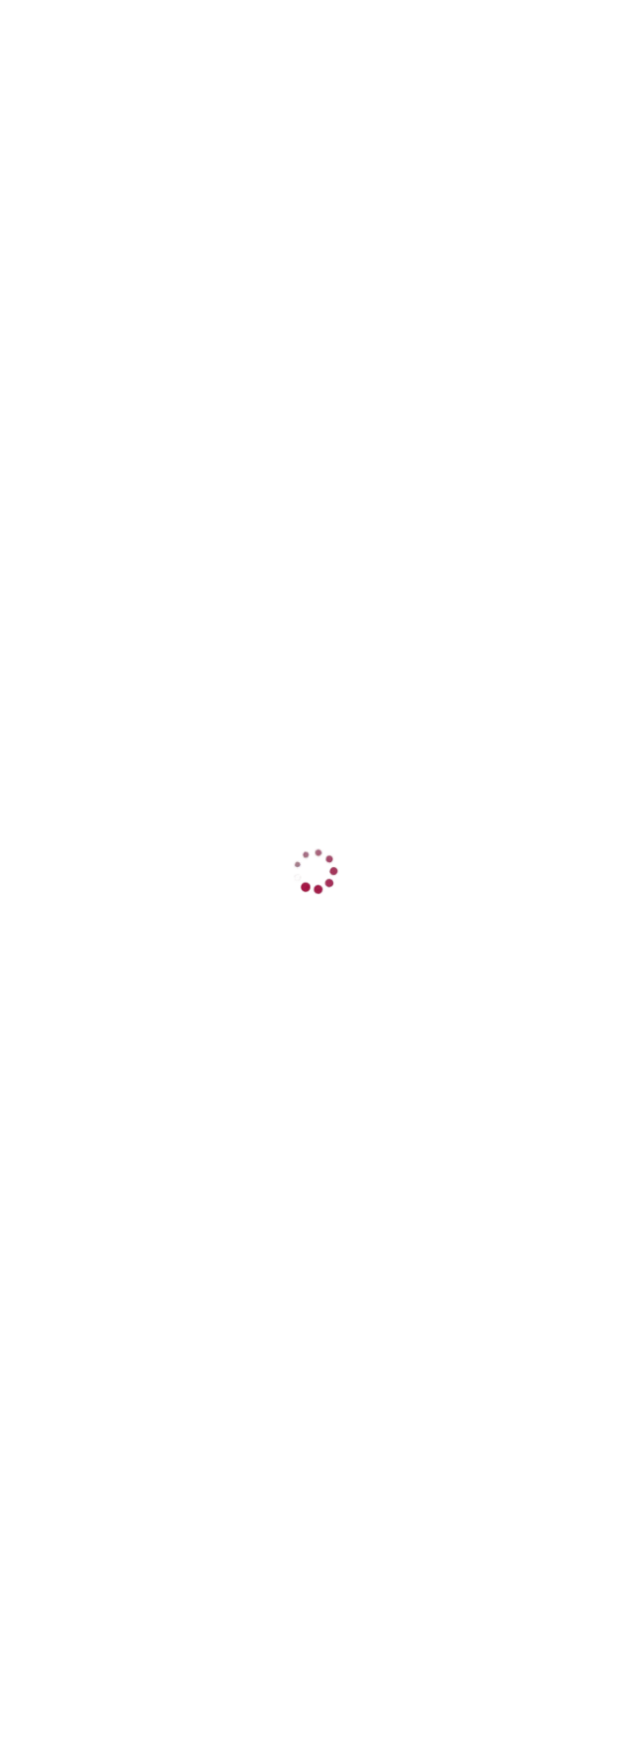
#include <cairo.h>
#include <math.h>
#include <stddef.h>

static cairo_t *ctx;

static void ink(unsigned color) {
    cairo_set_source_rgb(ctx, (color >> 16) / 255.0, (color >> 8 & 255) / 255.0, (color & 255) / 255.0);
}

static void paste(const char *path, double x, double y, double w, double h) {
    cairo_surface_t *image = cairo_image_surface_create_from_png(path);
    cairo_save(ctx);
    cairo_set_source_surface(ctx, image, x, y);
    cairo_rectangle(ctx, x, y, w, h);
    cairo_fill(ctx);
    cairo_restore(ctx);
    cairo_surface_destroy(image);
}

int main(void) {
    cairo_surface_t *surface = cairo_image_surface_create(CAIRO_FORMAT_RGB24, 630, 1741);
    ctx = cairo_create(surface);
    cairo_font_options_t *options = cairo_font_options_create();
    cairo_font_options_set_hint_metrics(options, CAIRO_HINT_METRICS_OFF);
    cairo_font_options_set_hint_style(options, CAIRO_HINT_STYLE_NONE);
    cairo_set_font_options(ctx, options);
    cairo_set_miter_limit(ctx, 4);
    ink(0xffffff);
    cairo_paint(ctx);
    paste("pic1.png", 293, 848, 46, 47);
    cairo_surface_write_to_png(surface, "screenshot.png");
    cairo_font_options_destroy(options);
    cairo_destroy(ctx);
    cairo_surface_destroy(surface);
    return 0;
}
